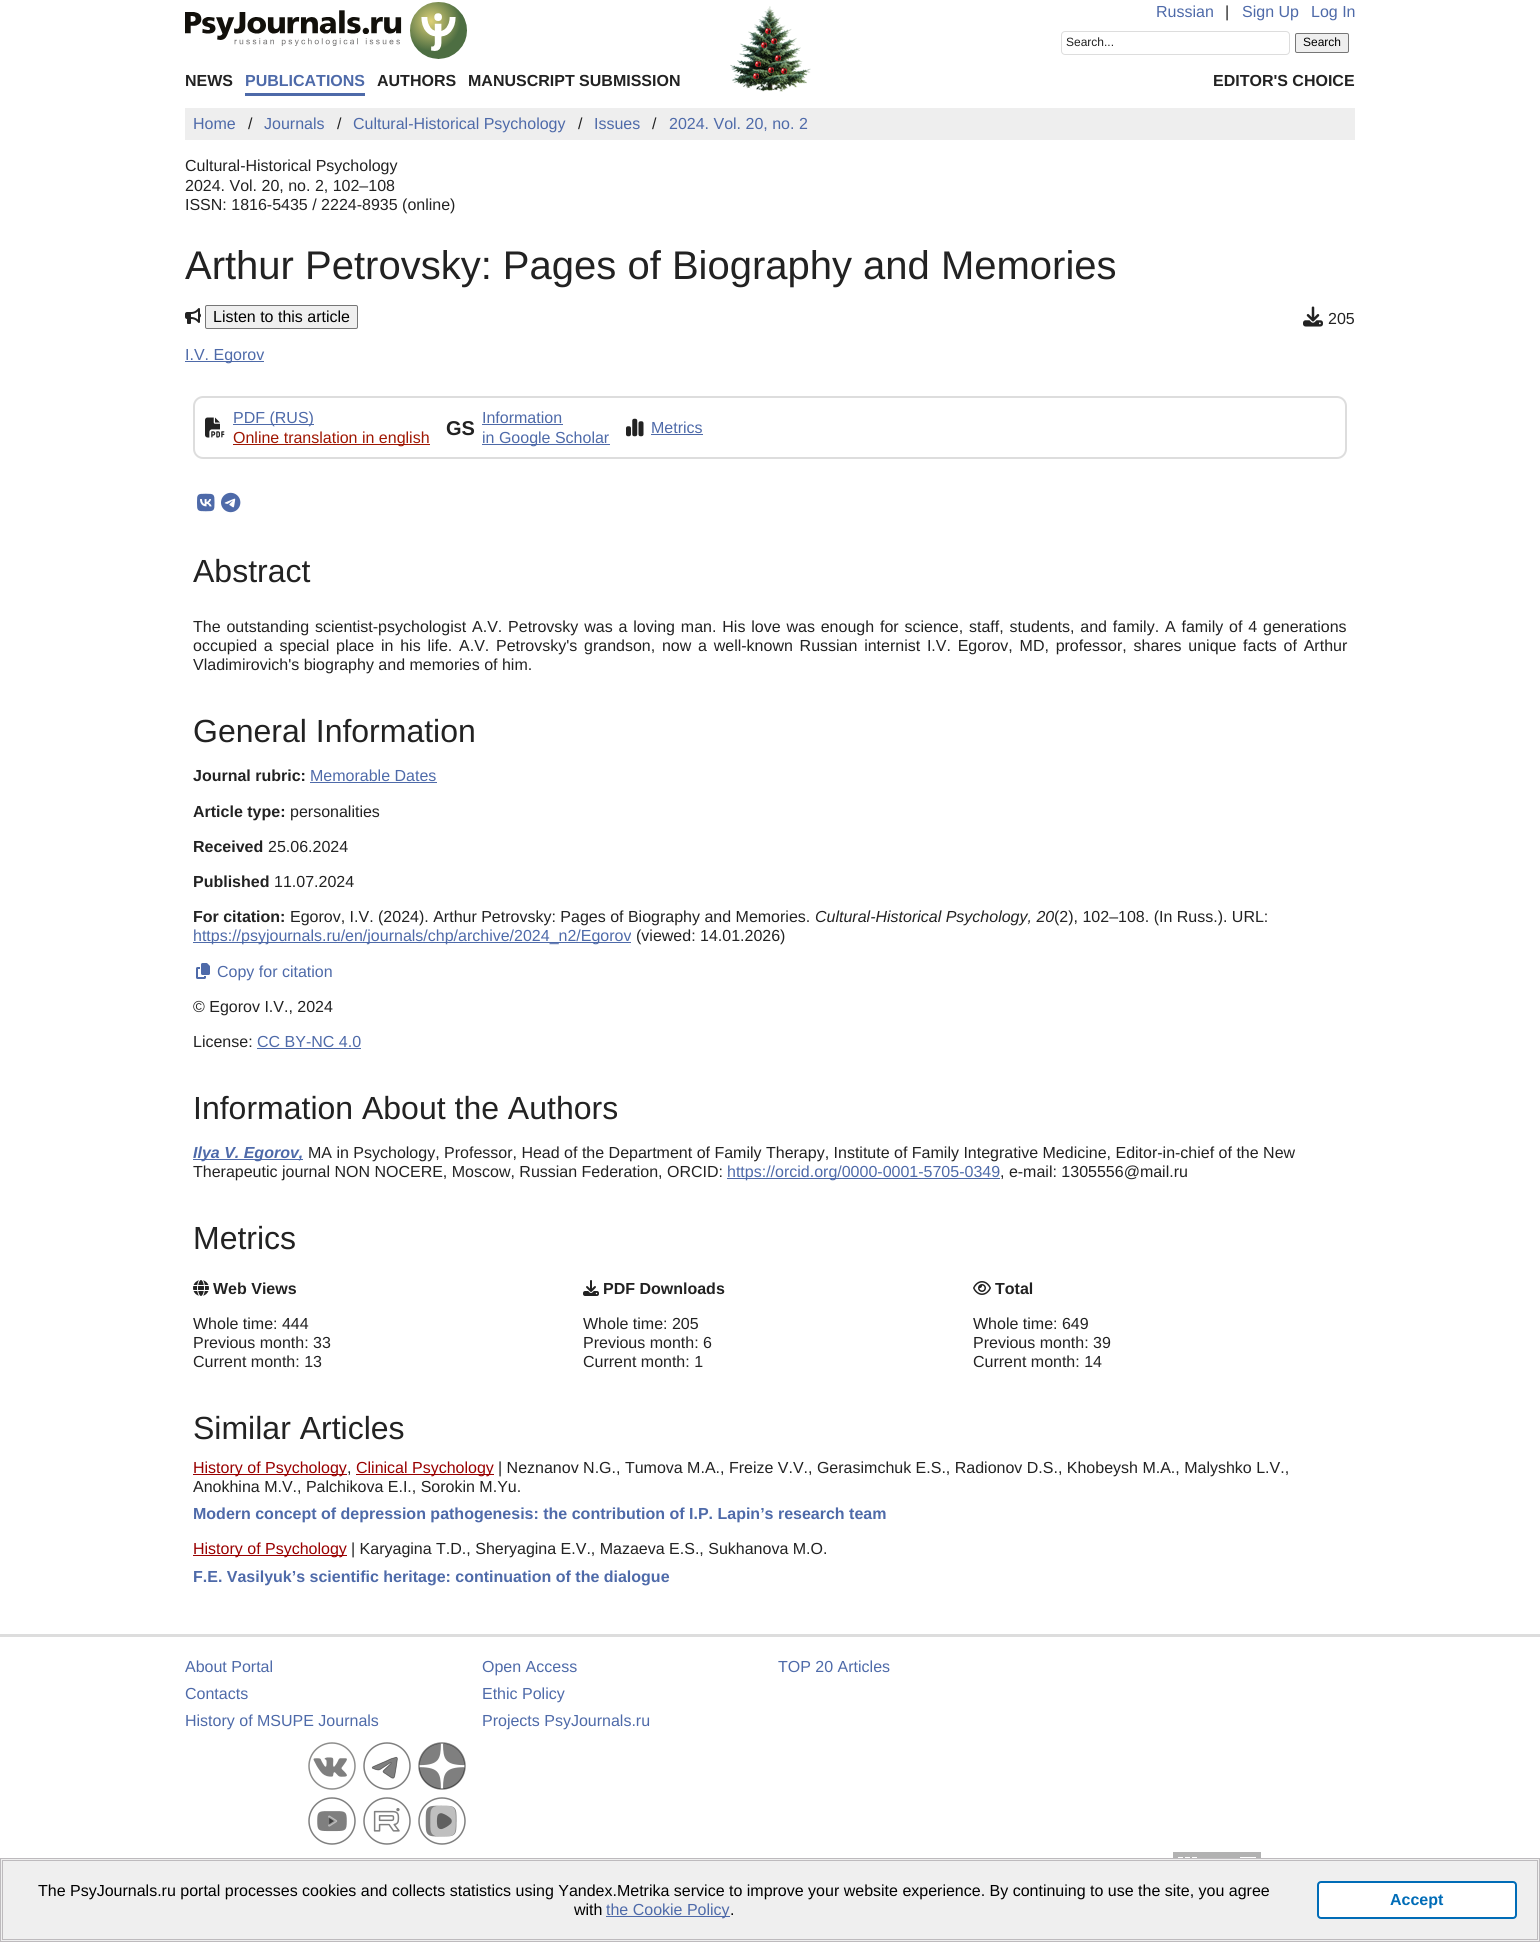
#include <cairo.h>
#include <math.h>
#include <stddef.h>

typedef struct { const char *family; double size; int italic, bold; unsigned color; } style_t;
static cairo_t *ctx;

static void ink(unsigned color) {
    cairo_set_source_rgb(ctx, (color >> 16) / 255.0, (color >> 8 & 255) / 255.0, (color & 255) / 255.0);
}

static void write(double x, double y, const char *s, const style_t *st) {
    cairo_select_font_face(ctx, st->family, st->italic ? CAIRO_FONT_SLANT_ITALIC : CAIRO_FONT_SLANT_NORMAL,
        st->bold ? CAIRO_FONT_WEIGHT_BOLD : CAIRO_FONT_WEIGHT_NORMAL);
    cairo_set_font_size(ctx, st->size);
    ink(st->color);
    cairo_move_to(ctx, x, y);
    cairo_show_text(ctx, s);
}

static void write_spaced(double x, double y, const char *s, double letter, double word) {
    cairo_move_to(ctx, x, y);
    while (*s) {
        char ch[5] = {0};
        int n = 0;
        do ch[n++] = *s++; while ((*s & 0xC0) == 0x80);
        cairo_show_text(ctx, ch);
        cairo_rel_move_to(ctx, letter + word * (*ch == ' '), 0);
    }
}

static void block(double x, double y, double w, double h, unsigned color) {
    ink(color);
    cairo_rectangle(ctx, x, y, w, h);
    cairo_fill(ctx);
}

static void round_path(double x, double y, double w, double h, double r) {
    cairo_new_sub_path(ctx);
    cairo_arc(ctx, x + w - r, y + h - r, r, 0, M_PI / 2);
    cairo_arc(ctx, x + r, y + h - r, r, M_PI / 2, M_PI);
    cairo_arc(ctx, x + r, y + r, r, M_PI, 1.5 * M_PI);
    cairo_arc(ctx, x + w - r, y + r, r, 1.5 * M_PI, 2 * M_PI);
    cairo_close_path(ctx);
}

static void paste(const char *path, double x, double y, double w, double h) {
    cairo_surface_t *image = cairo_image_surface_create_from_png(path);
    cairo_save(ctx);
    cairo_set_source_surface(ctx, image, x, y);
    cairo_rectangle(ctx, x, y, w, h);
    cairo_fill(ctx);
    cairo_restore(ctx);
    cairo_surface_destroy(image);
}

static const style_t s1 = {"Liberation Sans", 16, 0, 0, 0x4e6aa9};
static const style_t s2 = {"Liberation Sans", 16, 0, 0, 0x222222};
static const style_t s3 = {"Liberation Sans", 12, 0, 0, 0x222222};
static const style_t s4 = {"Liberation Sans", 12, 0, 0, 0x000000};
static const style_t s5 = {"Liberation Sans", 16, 0, 1, 0x222222};
static const style_t s6 = {"Liberation Sans", 16, 0, 1, 0x4e6aa9};
static const style_t s7 = {"Liberation Sans", 40, 0, 0, 0x222222};
static const style_t s8 = {"Liberation Sans", 16, 0, 0, 0x000000};
static const style_t s9 = {"Liberation Sans", 16, 0, 0, 0x9f1602};
static const style_t s10 = {"Liberation Sans", 20, 0, 1, 0x222222};
static const style_t s11 = {"Liberation Sans", 32, 0, 0, 0x222222};
static const style_t s12 = {"Liberation Sans", 16, 1, 0, 0x222222};
static const style_t s13 = {"Liberation Sans", 16, 1, 1, 0x4e6aa9};
static const style_t s14 = {"Liberation Sans", 16, 0, 0, 0x990000};
static const style_t s15 = {"Liberation Sans", 16, 0, 1, 0x006cb7};

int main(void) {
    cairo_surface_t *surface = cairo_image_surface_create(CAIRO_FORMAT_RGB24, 1540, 1942);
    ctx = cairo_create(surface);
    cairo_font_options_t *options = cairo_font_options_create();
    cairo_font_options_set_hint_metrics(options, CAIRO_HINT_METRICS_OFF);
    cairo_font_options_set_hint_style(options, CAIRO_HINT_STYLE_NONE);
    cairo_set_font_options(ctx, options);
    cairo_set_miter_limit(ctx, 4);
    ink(0xffffff);
    cairo_paint(ctx);
    paste("pic1.png", 730, 6, 81, 86);
    paste("pic2.png", 185, 2, 282, 57);
    write(1156, 17, "Russian", &s1);
    write(1225, 17, "|", &s2);
    write(1242, 17, "Sign Up", &s1);
    write(1311, 17, "Log In", &s1);
    round_path(1061.5, 31.5, 228, 23, 3.5);
    ink(0xdddddd);
    cairo_set_line_width(ctx, 1);
    cairo_stroke(ctx);
    write(1066, 46, "Search...", &s3);
    ink(0xefefef);
    round_path(1295.5, 33.5, 53, 19, 1.5);
    cairo_fill_preserve(ctx);
    ink(0x767676);
    cairo_stroke(ctx);
    write(1303, 46, "Search", &s4);
    write(185, 86, "NEWS", &s5);
    block(245, 93, 120, 3, 0x4e6aa9);
    write(245, 86, "PUBLICATIONS", &s6);
    write(377, 86, "AUTHORS", &s5);
    write(468, 86, "MANUSCRIPT SUBMISSION", &s5);
    write(1213, 86, "EDITOR'S CHOICE", &s5);
    block(185, 108, 1170, 32, 0xeeeeee);
    write(193, 129, "Home", &s1);
    write(248, 129, "/", &s2);
    write(264, 129, "Journals", &s1);
    write(337, 129, "/", &s2);
    write(353, 129, "Cultural-Historical Psychology", &s1);
    write(578, 129, "/", &s2);
    write(594, 129, "Issues", &s1);
    write(652, 129, "/", &s2);
    write(669, 129, "2024. Vol. 20, no. 2", &s1);
    write(185, 171, "Cultural-Historical Psychology", &s2);
    write(185, 191, "2024. Vol. 20, no. 2, 102–108", &s2);
    write(185, 210, "ISSN: 1816-5435 / 2224-8935 (online)", &s2);
    write(185, 279, "Arthur Petrovsky: Pages of Biography and Memories", &s7);
    paste("pic3.png", 185, 308, 16, 16);
    ink(0xefefef);
    round_path(205.5, 305.5, 152, 23, 1.5);
    cairo_fill_preserve(ctx);
    ink(0x767676);
    cairo_stroke(ctx);
    write(213, 322, "Listen to this article", &s8);
    paste("pic4.png", 1303, 306, 20, 21);
    write(1328, 324, "205", &s2);
    block(185, 361, 79, 1, 0x4e6aa9);
    write(185, 360, "I.V. Egorov", &s1);
    round_path(194, 397, 1152, 61, 9);
    ink(0xdddddd);
    cairo_set_line_width(ctx, 2);
    cairo_stroke(ctx);
    paste("pic5.png", 205, 417, 20, 21);
    block(233, 424, 81, 1, 0x4e6aa9);
    write(233, 423, "PDF (RUS)", &s1);
    block(233, 444, 197, 1, 0x9f1602);
    write(233, 443, "Online translation in english", &s9);
    write(446, 435, "GS", &s10);
    write(482, 423, "Information", &s1);
    block(482, 424, 81, 1, 0x4e6aa9);
    block(482, 444, 128, 1, 0x4e6aa9);
    write(482, 443, "in Google Scholar", &s1);
    paste("pic6.png", 626, 418, 18, 19);
    write(651, 433, "Metrics", &s1);
    block(651, 434, 52, 1, 0x4e6aa9);
    paste("pic7.png", 197, 493, 18, 19);
    paste("pic8.png", 221, 492, 20, 21);
    write(193, 582, "Abstract", &s11);
    cairo_set_font_size(ctx, 16);
    write_spaced(193, 632, "The outstanding scientist-psychologist A.V. Petrovsky was a loving man. His love was enough for science, staff, students, and family. A family of 4 generations", 0, 1.4);
    write_spaced(193, 651, "occupied a special place in his life. A.V. Petrovsky's grandson, now a well-known Russian internist I.V. Egorov, MD, professor, shares unique facts of Arthur", 0, 2.3);
    write(193, 670, "Vladimirovich's biography and memories of him.", &s2);
    write(193, 742, "General Information", &s11);
    write(193, 781, "Journal rubric:", &s5);
    write(310, 781, "Memorable Dates", &s1);
    block(310, 782, 127, 1, 0x4e6aa9);
    write(193, 817, "Article type:", &s5);
    write(290, 817, "personalities", &s2);
    write(193, 852, "Received", &s5);
    write(268, 852, "25.06.2024", &s2);
    write(193, 887, "Published", &s5);
    write(274, 887, "11.07.2024", &s2);
    write(193, 922, "For citation:", &s5);
    write(290, 922, "Egorov, I.V. (2024). Arthur Petrovsky: Pages of Biography and Memories.", &s2);
    write(815, 922, "Cultural-Historical Psychology, 20", &s12);
    write(1054, 922, "(2), 102–108. (In Russ.). URL:", &s2);
    block(193, 942, 438, 1, 0x4e6aa9);
    write(193, 941, "https://psyjournals.ru/en/journals/chp/archive/2024_n2/Egorov", &s1);
    write(636, 941, "(viewed: 14.01.2026)", &s2);
    paste("pic9.png", 196, 963, 14, 16);
    write(217, 977, "Copy for citation", &s1);
    write(193, 1012, "© Egorov I.V., 2024", &s2);
    write(193, 1047, "License:", &s2);
    write(257, 1047, "CC BY-NC 4.0", &s1);
    block(257, 1048, 104, 1, 0x4e6aa9);
    write(193, 1119, "Information About the Authors", &s11);
    block(193, 1159, 110, 1, 0x4e6aa9);
    write(193, 1158, "Ilya V. Egorov,", &s13);
    write(308, 1158, "MA in Psychology, Professor, Head of the Department of Family Therapy, Institute of Family Integrative Medicine, Editor-in-chief of the New", &s2);
    write(193, 1177, "Therapeutic journal NON NOCERE, Moscow, Russian Federation, ORCID:", &s2);
    block(727, 1178, 273, 1, 0x4e6aa9);
    write(727, 1177, "https://orcid.org/0000-0001-5705-0349", &s1);
    write(1000, 1177, ", e-mail: 1305556@mail.ru", &s2);
    write(193, 1249, "Metrics", &s11);
    paste("pic10.png", 193, 1280, 16, 16);
    write(213, 1294, "Web Views", &s5);
    write(193, 1329, "Whole time: 444", &s2);
    write(193, 1348, "Previous month: 33", &s2);
    write(193, 1367, "Current month: 13", &s2);
    paste("pic11.png", 583, 1280, 16, 16);
    write(603, 1294, "PDF Downloads", &s5);
    write(583, 1329, "Whole time: 205", &s2);
    write(583, 1348, "Previous month: 6", &s2);
    write(583, 1367, "Current month: 1", &s2);
    paste("pic12.png", 973, 1281, 18, 14);
    write(995, 1294, "Total", &s5);
    write(973, 1329, "Whole time: 649", &s2);
    write(973, 1348, "Previous month: 39", &s2);
    write(973, 1367, "Current month: 14", &s2);
    write(193, 1439, "Similar Articles", &s11);
    block(193, 1474, 154, 1, 0x990000);
    write(193, 1473, "History of Psychology", &s14);
    write(347, 1473, ",", &s2);
    block(356, 1474, 138, 1, 0x990000);
    write(356, 1473, "Clinical Psychology", &s14);
    write(498, 1473, "| Neznanov N.G., Tumova M.A., Freize V.V., Gerasimchuk E.S., Radionov D.S., Khobeysh M.A., Malyshko L.V.,", &s2);
    write(193, 1492, "Anokhina M.V., Palchikova E.I., Sorokin M.Yu.", &s2);
    write(193, 1519, "Modern concept of depression pathogenesis: the contribution of I.P. Lapin’s research team", &s6);
    block(193, 1555, 154, 1, 0x990000);
    write(193, 1554, "History of Psychology", &s14);
    write(351, 1554, "| Karyagina T.D., Sheryagina E.V., Mazaeva E.S., Sukhanova M.O.", &s2);
    write(193, 1582, "F.E. Vasilyuk’s scientific heritage: continuation of the dialogue", &s6);
    block(0, 1634, 1540, 3, 0xdddddd);
    write(185, 1672, "About Portal", &s1);
    write(185, 1699, "Contacts", &s1);
    write(185, 1726, "History of MSUPE Journals", &s1);
    write(482, 1672, "Open Access", &s1);
    write(482, 1699, "Ethic Policy", &s1);
    write(482, 1726, "Projects PsyJournals.ru", &s1);
    write(778, 1672, "TOP 20 Articles", &s1);
    paste("pic13.png", 308, 1742, 48, 48);
    paste("pic14.png", 363, 1742, 48, 48);
    paste("pic15.png", 418, 1742, 48, 48);
    paste("pic16.png", 308, 1797, 48, 48);
    paste("pic17.png", 363, 1797, 48, 48);
    paste("pic18.png", 418, 1797, 48, 48);
    paste("pic19.png", 1173, 1852, 88, 6);
    ink(0xefefef);
    cairo_rectangle(ctx, 0.5, 1858.5, 1539, 83);
    cairo_fill_preserve(ctx);
    ink(0xbdbabd);
    cairo_set_line_width(ctx, 1);
    cairo_stroke(ctx);
    cairo_rectangle(ctx, 2.5, 1860.5, 1535, 79);
    cairo_stroke(ctx);
    write(38, 1896, "The PsyJournals.ru portal processes cookies and collects statistics using Yandex.Metrika service to improve your website experience. By continuing to use the site, you agree", &s8);
    write(574, 1915, "with", &s8);
    block(606, 1916, 124, 1, 0x4e6aa9);
    write(606, 1915, "the Cookie Policy", &s1);
    write(730, 1915, ".", &s8);
    ink(0xffffff);
    round_path(1318, 1882, 198, 36, 3);
    cairo_fill_preserve(ctx);
    ink(0x006cb7);
    cairo_set_line_width(ctx, 2);
    cairo_stroke(ctx);
    write(1390, 1905, "Accept", &s15);
    cairo_surface_write_to_png(surface, "screenshot.png");
    cairo_font_options_destroy(options);
    cairo_destroy(ctx);
    cairo_surface_destroy(surface);
    return 0;
}
